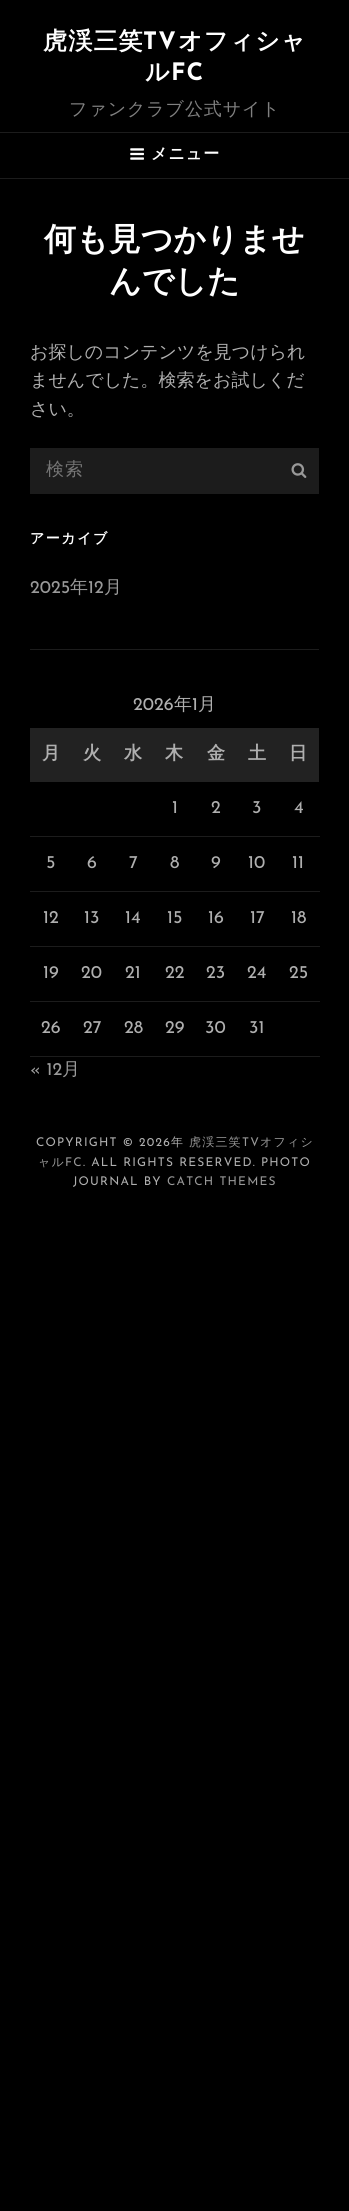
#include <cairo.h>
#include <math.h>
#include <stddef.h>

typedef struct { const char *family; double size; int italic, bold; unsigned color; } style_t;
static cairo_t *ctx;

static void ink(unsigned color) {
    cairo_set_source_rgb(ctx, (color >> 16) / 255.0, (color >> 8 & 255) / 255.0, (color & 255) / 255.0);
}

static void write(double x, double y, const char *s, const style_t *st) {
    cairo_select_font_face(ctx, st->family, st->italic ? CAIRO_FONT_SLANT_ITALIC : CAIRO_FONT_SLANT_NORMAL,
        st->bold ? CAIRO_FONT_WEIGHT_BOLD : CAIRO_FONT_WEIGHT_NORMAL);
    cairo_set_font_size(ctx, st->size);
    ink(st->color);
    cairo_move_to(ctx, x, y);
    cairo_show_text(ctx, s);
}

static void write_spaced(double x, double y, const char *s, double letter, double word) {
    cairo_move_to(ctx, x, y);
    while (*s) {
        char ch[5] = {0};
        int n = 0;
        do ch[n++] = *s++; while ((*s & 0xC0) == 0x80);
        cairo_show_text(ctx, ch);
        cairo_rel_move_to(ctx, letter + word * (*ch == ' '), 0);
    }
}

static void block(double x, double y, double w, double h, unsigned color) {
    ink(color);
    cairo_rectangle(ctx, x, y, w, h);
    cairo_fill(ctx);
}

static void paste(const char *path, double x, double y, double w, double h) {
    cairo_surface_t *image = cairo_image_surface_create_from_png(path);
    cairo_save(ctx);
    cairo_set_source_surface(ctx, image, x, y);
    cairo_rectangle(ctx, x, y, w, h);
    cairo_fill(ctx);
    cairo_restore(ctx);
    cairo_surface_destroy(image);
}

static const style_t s1 = {"WenQuanYi Zen Hei", 32, 0, 1, 0xffffff};
static const style_t s2 = {"WenQuanYi Zen Hei Medium", 18, 0, 0, 0xafafaf};
static const style_t s3 = {"Josefin Sans", 18, 0, 0, 0x999999};
static const style_t s4 = {"WenQuanYi Zen Hei Medium", 18, 0, 0, 0x999999};
static const style_t s5 = {"Josefin Sans", 18, 0, 0, 0xafafaf};
static const style_t s6 = {"WenQuanYi Zen Hei", 18, 0, 1, 0xafafaf};

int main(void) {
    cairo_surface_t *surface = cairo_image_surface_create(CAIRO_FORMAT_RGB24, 349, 2211);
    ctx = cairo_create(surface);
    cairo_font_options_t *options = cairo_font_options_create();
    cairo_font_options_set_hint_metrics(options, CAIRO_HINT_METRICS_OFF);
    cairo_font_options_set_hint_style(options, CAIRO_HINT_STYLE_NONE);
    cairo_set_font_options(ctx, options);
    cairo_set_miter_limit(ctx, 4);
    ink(0x000000);
    cairo_paint(ctx);
    cairo_select_font_face(ctx, "WenQuanYi Zen Hei", CAIRO_FONT_SLANT_NORMAL, CAIRO_FONT_WEIGHT_BOLD);
    cairo_set_font_size(ctx, 24);
    ink(0xffffff);
    write_spaced(43, 49, "虎渓三笑", 1.2, 0);
    cairo_select_font_face(ctx, "Josefin Sans", CAIRO_FONT_SLANT_NORMAL, CAIRO_FONT_WEIGHT_BOLD);
    write_spaced(143, 49, "TV", 1.2, 0);
    cairo_select_font_face(ctx, "WenQuanYi Zen Hei", CAIRO_FONT_SLANT_NORMAL, CAIRO_FONT_WEIGHT_BOLD);
    write_spaced(178, 49, "オフィシャ", 1.2, 0);
    write_spaced(145, 80, "ル", 1.2, 0);
    cairo_select_font_face(ctx, "Josefin Sans", CAIRO_FONT_SLANT_NORMAL, CAIRO_FONT_WEIGHT_BOLD);
    write_spaced(171, 80, "FC", 1.2, 0);
    cairo_select_font_face(ctx, "WenQuanYi Zen Hei Medium", CAIRO_FONT_SLANT_NORMAL, CAIRO_FONT_WEIGHT_NORMAL);
    cairo_set_font_size(ctx, 18);
    ink(0x808080);
    write_spaced(69, 115, "ファンクラブ公式サイト", 0.9, 0);
    block(0, 132, 349, 1, 0x1c1c1c);
    block(0, 178, 349, 1, 0x1c1c1c);
    paste("pic1.png", 130, 148, 14, 12);
    cairo_select_font_face(ctx, "WenQuanYi Zen Hei", CAIRO_FONT_SLANT_NORMAL, CAIRO_FONT_WEIGHT_BOLD);
    cairo_set_font_size(ctx, 16);
    ink(0xffffff);
    write_spaced(151, 159, "メニュー", 1, 0);
    write(44, 250, "何も見つかりませ", &s1);
    write(109, 292, "んでした", &s1);
    write(30, 358, "お探しのコンテンツを見つけられ", &s2);
    write(30, 386, "ませんでした。検索をお試しくだ", &s2);
    write(30, 415, "さい。", &s2);
    block(30, 448, 289, 46, 0x1c1c1c);
    ink(0x757575);
    write_spaced(46, 475, "検索", 0.9, 0);
    paste("pic2.png", 291, 463, 16, 15);
    cairo_select_font_face(ctx, "WenQuanYi Zen Hei", CAIRO_FONT_SLANT_NORMAL, CAIRO_FONT_WEIGHT_BOLD);
    cairo_set_font_size(ctx, 14);
    ink(0xffffff);
    write_spaced(30, 543, "アーカイブ", 1.5, 0);
    write(30, 593, "2025", &s3);
    write(70, 593, "年", &s4);
    write(88, 593, "12", &s3);
    write(104, 593, "月", &s4);
    block(30, 649, 289, 1, 0x1c1c1c);
    write(133, 710, "2026", &s5);
    write(174, 710, "年", &s2);
    write(192, 710, "1", &s5);
    write(198, 710, "月", &s2);
    block(30, 728, 289, 54, 0x222222);
    write(42, 759, "月", &s6);
    write(83, 759, "火", &s6);
    write(124, 759, "水", &s6);
    write(165, 759, "木", &s6);
    write(207, 759, "金", &s6);
    write(248, 759, "土", &s6);
    write(289, 759, "日", &s6);
    block(30, 836, 290, 1, 0x1c1c1c);
    write(172, 813, "1", &s5);
    write(211, 813, "2", &s5);
    write(252, 813, "3", &s5);
    write(294, 813, "4", &s5);
    block(30, 891, 290, 1, 0x1c1c1c);
    write(46, 868, "5", &s5);
    write(87, 868, "6", &s5);
    write(129, 868, "7", &s5);
    write(170, 868, "8", &s5);
    write(211, 868, "9", &s5);
    write(248, 868, "10", &s5);
    write(292, 868, "11", &s5);
    block(30, 946, 290, 1, 0x1c1c1c);
    write(43, 923, "12", &s5);
    write(84, 923, "13", &s5);
    write(125, 923, "14", &s5);
    write(167, 923, "15", &s5);
    write(208, 923, "16", &s5);
    write(250, 923, "17", &s5);
    write(291, 923, "18", &s5);
    block(30, 1001, 290, 1, 0x1c1c1c);
    write(43, 978, "19", &s5);
    write(81, 978, "20", &s5);
    write(125, 978, "21", &s5);
    write(165, 978, "22", &s5);
    write(206, 978, "23", &s5);
    write(247, 978, "24", &s5);
    write(289, 978, "25", &s5);
    block(30, 1056, 290, 1, 0x1c1c1c);
    write(41, 1033, "26", &s5);
    write(83, 1033, "27", &s5);
    write(124, 1033, "28", &s5);
    write(165, 1033, "29", &s5);
    write(205, 1033, "30", &s5);
    write(249, 1033, "31", &s5);
    write(30, 1075, "« 12", &s3);
    write(62, 1075, "月", &s4);
    cairo_select_font_face(ctx, "Josefin Sans", CAIRO_FONT_SLANT_NORMAL, CAIRO_FONT_WEIGHT_NORMAL);
    cairo_set_font_size(ctx, 12);
    ink(0xafafaf);
    write_spaced(36, 1146, "COPYRIGHT © 2026", 1.2, 0);
    cairo_select_font_face(ctx, "WenQuanYi Zen Hei Medium", CAIRO_FONT_SLANT_NORMAL, CAIRO_FONT_WEIGHT_NORMAL);
    write_spaced(171, 1146, "年", 1.2, 0);
    ink(0x999999);
    write_spaced(189, 1146, "虎渓三笑", 1.2, 0);
    cairo_select_font_face(ctx, "Josefin Sans", CAIRO_FONT_SLANT_NORMAL, CAIRO_FONT_WEIGHT_NORMAL);
    write_spaced(242, 1146, "TV", 1.2, 0);
    cairo_select_font_face(ctx, "WenQuanYi Zen Hei Medium", CAIRO_FONT_SLANT_NORMAL, CAIRO_FONT_WEIGHT_NORMAL);
    write_spaced(260, 1146, "オフィシ", 1.2, 0);
    write_spaced(38, 1166, "ャル", 1.2, 0);
    cairo_select_font_face(ctx, "Josefin Sans", CAIRO_FONT_SLANT_NORMAL, CAIRO_FONT_WEIGHT_NORMAL);
    write_spaced(65, 1166, "FC", 1.2, 0);
    ink(0xafafaf);
    write_spaced(83, 1166, ". ALL RIGHTS RESERVED. PHOTO", 1.2, 0);
    write_spaced(73, 1185, "JOURNAL BY", 1.2, 0);
    ink(0x999999);
    write_spaced(167, 1185, "CATCH THEMES", 1.2, 0);
    cairo_surface_write_to_png(surface, "screenshot.png");
    cairo_font_options_destroy(options);
    cairo_destroy(ctx);
    cairo_surface_destroy(surface);
    return 0;
}
